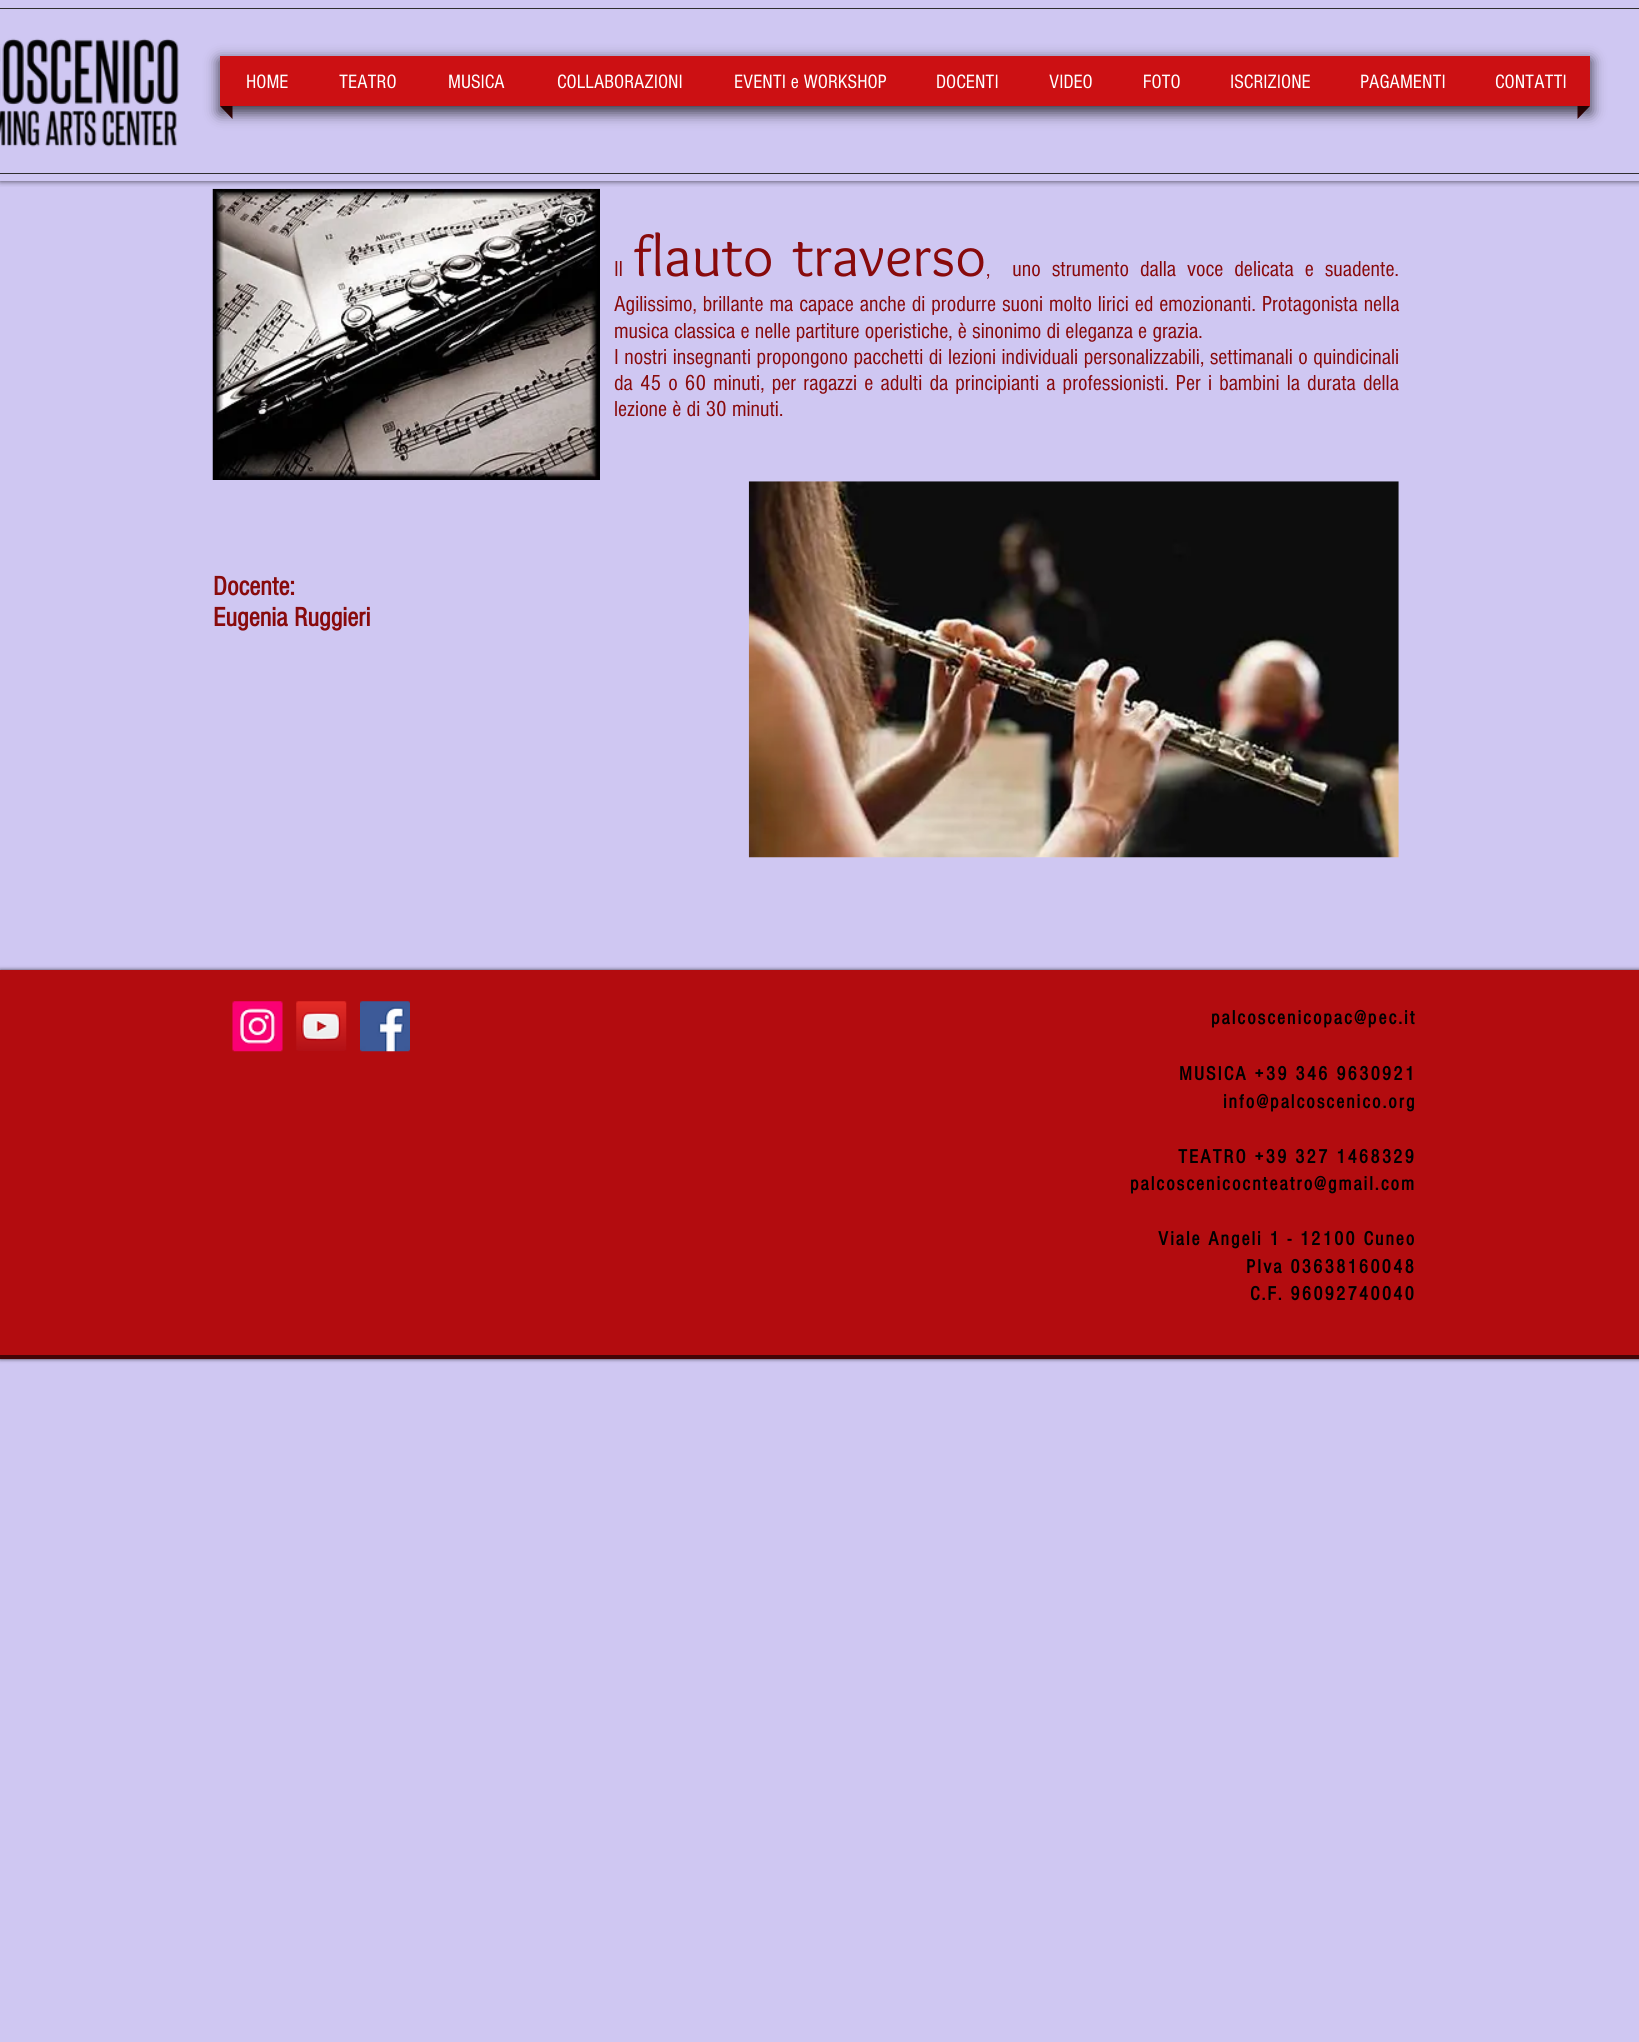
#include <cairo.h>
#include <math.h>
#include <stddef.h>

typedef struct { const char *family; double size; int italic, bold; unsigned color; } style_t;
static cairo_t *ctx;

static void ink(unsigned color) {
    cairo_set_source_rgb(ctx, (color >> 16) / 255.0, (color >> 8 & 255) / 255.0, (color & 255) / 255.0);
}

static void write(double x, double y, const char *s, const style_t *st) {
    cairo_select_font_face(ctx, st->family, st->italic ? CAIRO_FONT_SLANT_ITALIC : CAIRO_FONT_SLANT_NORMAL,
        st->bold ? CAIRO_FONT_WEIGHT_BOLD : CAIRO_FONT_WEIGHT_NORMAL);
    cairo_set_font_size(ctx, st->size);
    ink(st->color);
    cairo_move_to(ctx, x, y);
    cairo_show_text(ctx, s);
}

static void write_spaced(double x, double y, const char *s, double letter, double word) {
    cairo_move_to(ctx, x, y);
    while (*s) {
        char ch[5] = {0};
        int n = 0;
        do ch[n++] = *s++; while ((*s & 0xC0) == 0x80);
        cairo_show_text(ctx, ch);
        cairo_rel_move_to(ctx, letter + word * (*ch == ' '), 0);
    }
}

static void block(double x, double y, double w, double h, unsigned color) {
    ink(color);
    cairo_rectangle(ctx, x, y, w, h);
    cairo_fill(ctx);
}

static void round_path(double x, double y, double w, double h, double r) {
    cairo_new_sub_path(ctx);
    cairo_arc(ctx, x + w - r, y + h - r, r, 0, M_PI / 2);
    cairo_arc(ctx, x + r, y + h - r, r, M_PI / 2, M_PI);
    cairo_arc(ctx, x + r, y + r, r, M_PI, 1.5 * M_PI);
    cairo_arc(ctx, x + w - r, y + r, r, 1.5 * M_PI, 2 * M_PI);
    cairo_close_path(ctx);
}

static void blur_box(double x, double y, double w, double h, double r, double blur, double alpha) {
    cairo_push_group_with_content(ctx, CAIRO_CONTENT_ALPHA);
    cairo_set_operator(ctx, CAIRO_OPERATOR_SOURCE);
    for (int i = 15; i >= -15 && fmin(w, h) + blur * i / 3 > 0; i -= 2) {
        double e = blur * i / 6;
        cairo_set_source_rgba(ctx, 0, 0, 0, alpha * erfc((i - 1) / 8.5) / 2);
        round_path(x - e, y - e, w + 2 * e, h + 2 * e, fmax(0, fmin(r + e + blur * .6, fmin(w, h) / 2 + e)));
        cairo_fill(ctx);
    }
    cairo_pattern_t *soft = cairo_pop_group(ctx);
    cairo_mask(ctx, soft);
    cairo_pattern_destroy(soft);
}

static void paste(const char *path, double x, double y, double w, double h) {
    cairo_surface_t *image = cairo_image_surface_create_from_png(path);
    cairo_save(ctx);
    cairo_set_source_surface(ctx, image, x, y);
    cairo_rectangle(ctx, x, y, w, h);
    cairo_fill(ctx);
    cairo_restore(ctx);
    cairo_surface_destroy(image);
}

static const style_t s1 = {"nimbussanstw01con", 20, 0, 0, 0xffffff};
static const style_t s2 = {"nimbussanstw01con", 22.5, 0, 0, 0x880a0c};
static const style_t s3 = {"nimbussanstw01con", 27.5, 0, 1, 0x880a0c};

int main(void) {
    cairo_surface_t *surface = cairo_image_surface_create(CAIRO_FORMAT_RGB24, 1639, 2042);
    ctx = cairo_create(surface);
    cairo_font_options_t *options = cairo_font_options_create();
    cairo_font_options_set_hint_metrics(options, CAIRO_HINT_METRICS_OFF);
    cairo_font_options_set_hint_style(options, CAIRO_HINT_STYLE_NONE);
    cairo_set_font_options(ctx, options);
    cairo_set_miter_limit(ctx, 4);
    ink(0xcfc7f2);
    cairo_paint(ctx);
    cairo_save(ctx);
    cairo_rectangle(ctx, 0, 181, 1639, 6);
    cairo_clip(ctx);
    ink(0x000000);
    blur_box(0, 0, 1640, 181, 0, 3, 0.7);
    cairo_restore(ctx);
    block(0, 8, 1639, 1, 0x2f2e2e);
    block(0, 173, 1639, 1, 0x2f2e2e);
    paste("pic1.png", 0, 38, 179, 109);
    ink(0x440506);
    cairo_new_path(ctx);
    cairo_move_to(ctx, 220, 106);
    cairo_line_to(ctx, 232.5, 106);
    cairo_line_to(ctx, 232.5, 119);
    cairo_close_path(ctx);
    cairo_fill(ctx);
    cairo_new_path(ctx);
    cairo_move_to(ctx, 1577.5, 106);
    cairo_line_to(ctx, 1590, 106);
    cairo_line_to(ctx, 1577.5, 119);
    cairo_close_path(ctx);
    cairo_fill(ctx);
    ink(0x000000);
    blur_box(219, 60, 1372, 53, 0, 7, 0.7);
    block(220, 56, 1370, 50, 0xcc1013);
    write(246, 88, "HOME", &s1);
    write(339, 88, "TEATRO", &s1);
    write(448, 88, "MUSICA", &s1);
    write(557, 88, "COLLABORAZIONI", &s1);
    write(734, 88, "EVENTI e WORKSHOP", &s1);
    write(936, 88, "DOCENTI", &s1);
    write(1049, 88, "VIDEO", &s1);
    write(1143, 88, "FOTO", &s1);
    write(1230, 88, "ISCRIZIONE", &s1);
    write(1360, 88, "PAGAMENTI", &s1);
    write(1495, 88, "CONTATTI", &s1);
    paste("pic2.png", 212, 188, 388, 292);
    write(614, 276, "Il", &s2);
    cairo_select_font_face(ctx, "Overlock", CAIRO_FONT_SLANT_NORMAL, CAIRO_FONT_WEIGHT_NORMAL);
    cairo_set_font_size(ctx, 58.75);
    write_spaced(634, 276, "flauto traverso", 0, 5.75);
    cairo_select_font_face(ctx, "nimbussanstw01con", CAIRO_FONT_SLANT_NORMAL, CAIRO_FONT_WEIGHT_NORMAL);
    cairo_set_font_size(ctx, 22.5);
    write_spaced(986, 276, ",  uno strumento dalla voce delicata e suadente.", 0, 5.75);
    write_spaced(614, 311, "Agilissimo, brillante ma capace anche di produrre suoni molto lirici ed emozionanti. Protagonista nella", 0, 0.7);
    write(614, 338, "musica classica e nelle partiture operistiche, è sinonimo di eleganza e grazia.", &s2);
    write_spaced(614, 364, "I nostri insegnanti propongono pacchetti di lezioni individuali personalizzabili, settimanali o quindicinali", 0, 0.25);
    write_spaced(614, 390, "da 45 o 60 minuti, per ragazzi e adulti da principianti a professionisti. Per i bambini la durata della", 0, 1.9);
    write(614, 416, "lezione è di 30 minuti.", &s2);
    write(213, 595, "Docente:", &s3);
    write(213, 626, "Eugenia Ruggieri", &s3);
    paste("pic3.png", 748, 481, 651, 377);
    ink(0x000000);
    blur_box(0, 970, 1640, 389, 0, 2, 0.7);
    block(0, 970, 1639, 385, 0xb30c0f);
    block(0, 1355, 1639, 4, 0x440506);
    paste("pic4.png", 232, 1001, 51, 51);
    paste("pic5.png", 296, 1001, 51, 50);
    paste("pic6.png", 360, 1001, 50, 51);
    cairo_set_font_size(ctx, 20);
    ink(0x000000);
    write_spaced(1211, 1024, "palcoscenicopac@pec.it", 2, 0);
    write_spaced(1179, 1080, "MUSICA +39 346 9630921", 2, 0);
    write_spaced(1223, 1108, "info@palcoscenico.org", 2, 0);
    write_spaced(1178, 1163, "TEATRO +39 327 1468329", 2, 0);
    write_spaced(1130, 1190, "palcoscenicocnteatro@gmail.com", 2, 0);
    write_spaced(1158, 1245, "Viale Angeli 1 - 12100 Cuneo", 2, 0);
    write_spaced(1246, 1273, "PIva 03638160048", 2, 0);
    write_spaced(1250, 1300, "C.F. 96092740040", 2, 0);
    cairo_surface_write_to_png(surface, "screenshot.png");
    cairo_font_options_destroy(options);
    cairo_destroy(ctx);
    cairo_surface_destroy(surface);
    return 0;
}
